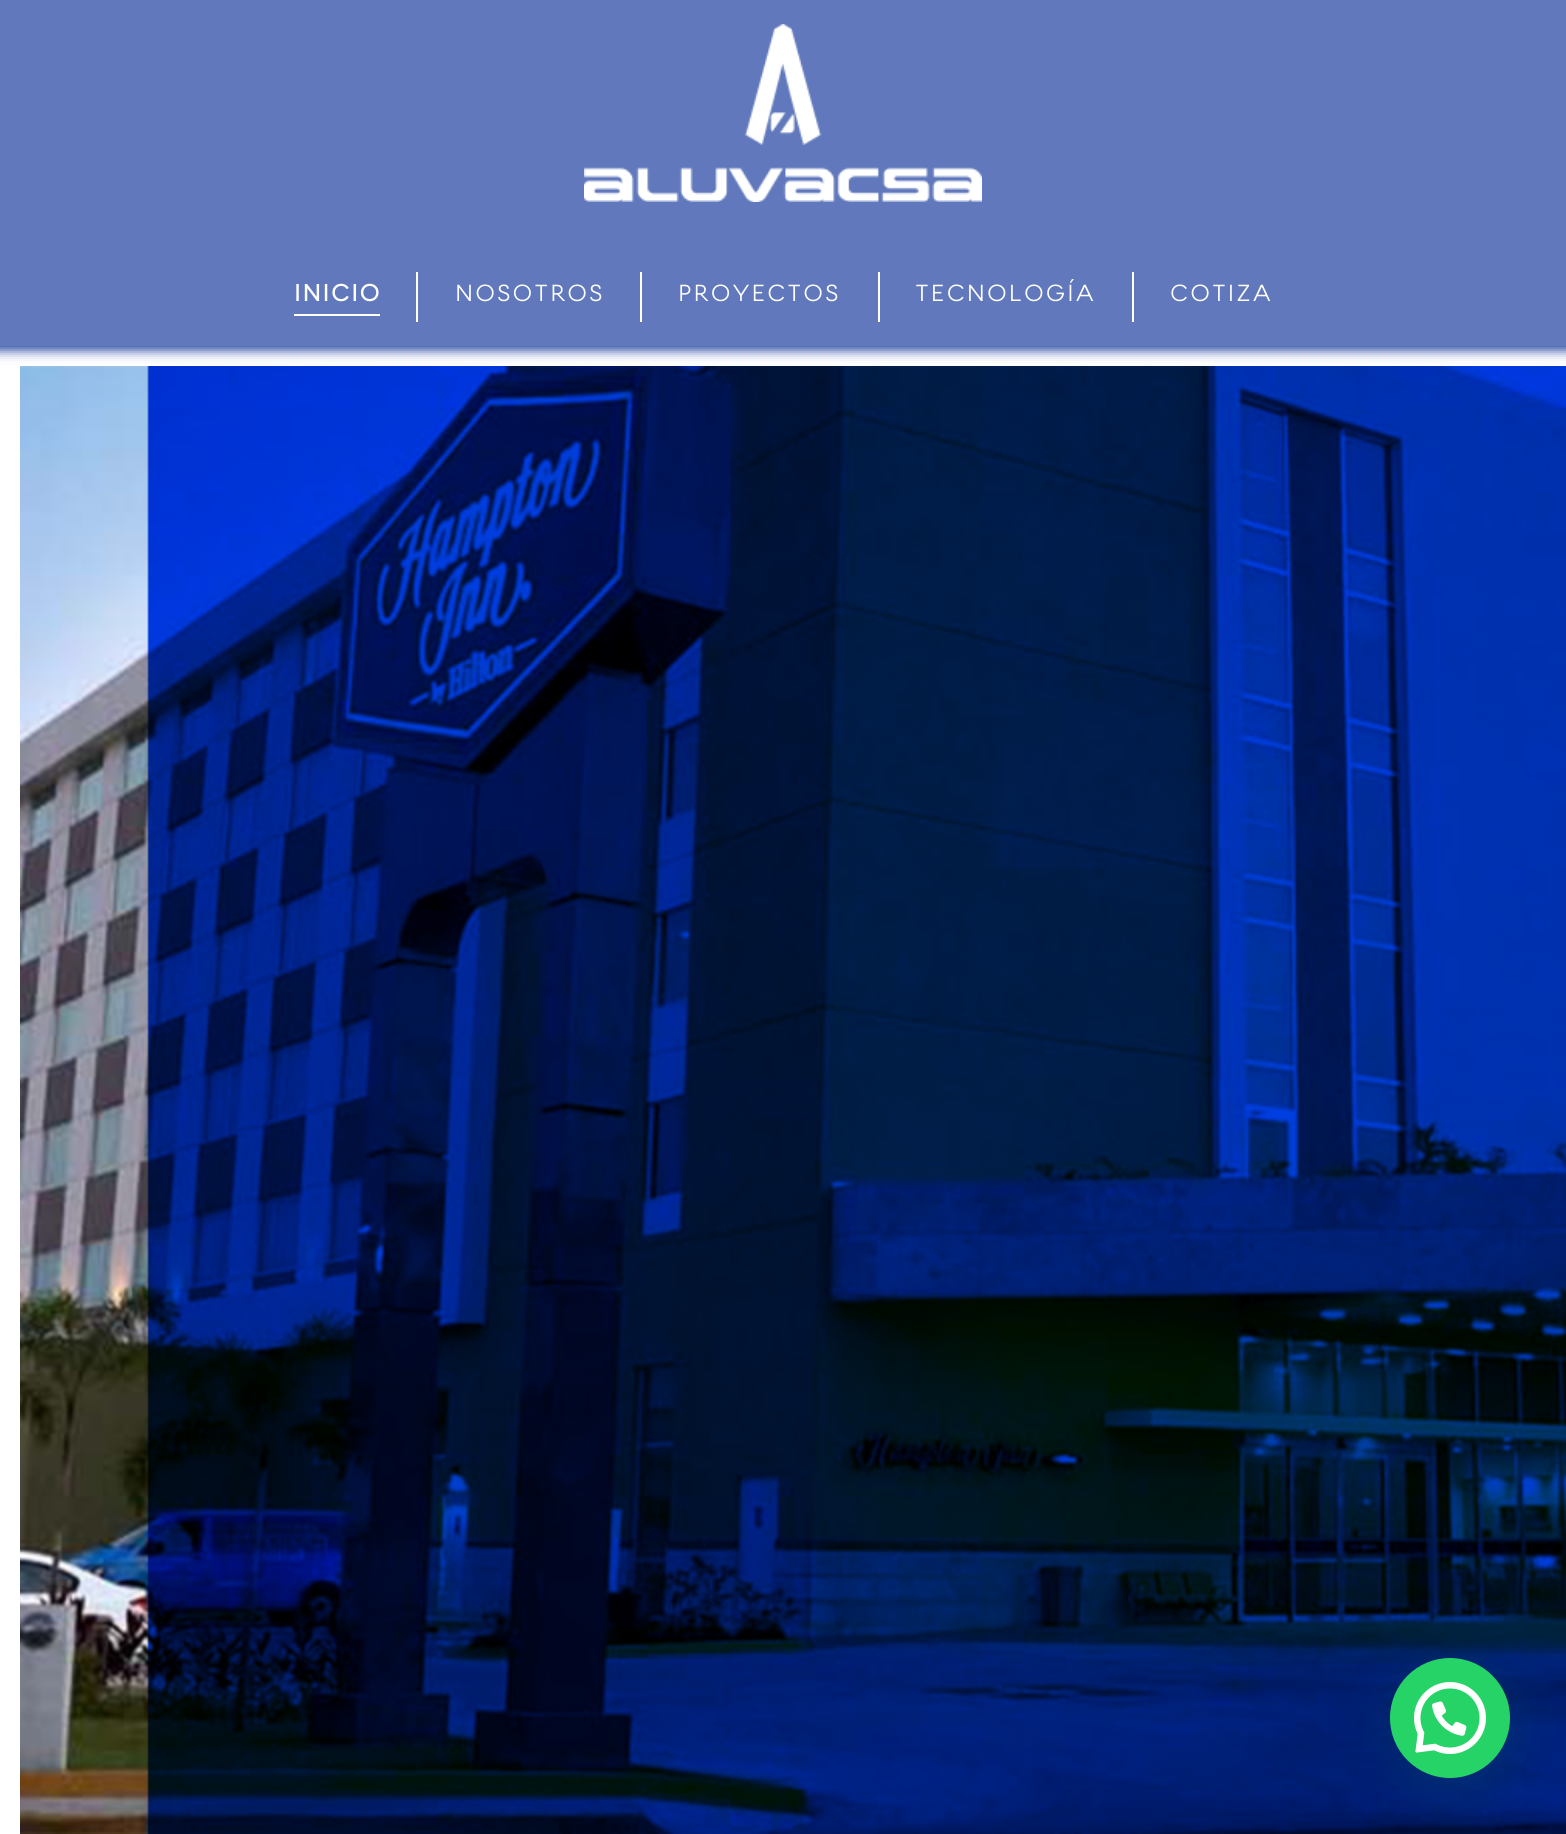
#include <cairo.h>
#include <math.h>
#include <stddef.h>

static cairo_t *ctx;

static void ink(unsigned color) {
    cairo_set_source_rgb(ctx, (color >> 16) / 255.0, (color >> 8 & 255) / 255.0, (color & 255) / 255.0);
}

static void write_spaced(double x, double y, const char *s, double letter, double word) {
    cairo_move_to(ctx, x, y);
    while (*s) {
        char ch[5] = {0};
        int n = 0;
        do ch[n++] = *s++; while ((*s & 0xC0) == 0x80);
        cairo_show_text(ctx, ch);
        cairo_rel_move_to(ctx, letter + word * (*ch == ' '), 0);
    }
}

static void block(double x, double y, double w, double h, unsigned color) {
    ink(color);
    cairo_rectangle(ctx, x, y, w, h);
    cairo_fill(ctx);
}

static void round_path(double x, double y, double w, double h, double r) {
    cairo_new_sub_path(ctx);
    cairo_arc(ctx, x + w - r, y + h - r, r, 0, M_PI / 2);
    cairo_arc(ctx, x + r, y + h - r, r, M_PI / 2, M_PI);
    cairo_arc(ctx, x + r, y + r, r, M_PI, 1.5 * M_PI);
    cairo_arc(ctx, x + w - r, y + r, r, 1.5 * M_PI, 2 * M_PI);
    cairo_close_path(ctx);
}

static void blur_box(double x, double y, double w, double h, double r, double blur, double alpha) {
    cairo_push_group_with_content(ctx, CAIRO_CONTENT_ALPHA);
    cairo_set_operator(ctx, CAIRO_OPERATOR_SOURCE);
    for (int i = 15; i >= -15 && fmin(w, h) + blur * i / 3 > 0; i -= 2) {
        double e = blur * i / 6;
        cairo_set_source_rgba(ctx, 0, 0, 0, alpha * erfc((i - 1) / 8.5) / 2);
        round_path(x - e, y - e, w + 2 * e, h + 2 * e, fmax(0, fmin(r + e + blur * .6, fmin(w, h) / 2 + e)));
        cairo_fill(ctx);
    }
    cairo_pattern_t *soft = cairo_pop_group(ctx);
    cairo_mask(ctx, soft);
    cairo_pattern_destroy(soft);
}

static void paste(const char *path, double x, double y, double w, double h) {
    cairo_surface_t *image = cairo_image_surface_create_from_png(path);
    cairo_save(ctx);
    cairo_set_source_surface(ctx, image, x, y);
    cairo_rectangle(ctx, x, y, w, h);
    cairo_fill(ctx);
    cairo_restore(ctx);
    cairo_surface_destroy(image);
}

int main(void) {
    cairo_surface_t *surface = cairo_image_surface_create(CAIRO_FORMAT_RGB24, 1566, 1834);
    ctx = cairo_create(surface);
    cairo_font_options_t *options = cairo_font_options_create();
    cairo_font_options_set_hint_metrics(options, CAIRO_HINT_METRICS_OFF);
    cairo_font_options_set_hint_style(options, CAIRO_HINT_STYLE_NONE);
    cairo_set_font_options(ctx, options);
    cairo_set_miter_limit(ctx, 4);
    ink(0xffffff);
    cairo_paint(ctx);
    paste("pic2.png", 20, 366, 1546, 1468);
    ink(0x1d3f9f);
    blur_box(-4, -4, 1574, 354, 0, 6, 1);
    block(0, 0, 1566, 346, 0x6179bc);
    paste("pic1.png", 584, 24, 398, 178);
    cairo_select_font_face(ctx, "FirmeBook", CAIRO_FONT_SLANT_NORMAL, CAIRO_FONT_WEIGHT_BOLD);
    cairo_set_font_size(ctx, 26);
    ink(0xffffff);
    write_spaced(294, 301, "INICIO", 2, 0);
    block(294, 314, 86, 2, 0xffffff);
    block(416, 272, 2, 50, 0xffffff);
    cairo_select_font_face(ctx, "FirmeBook", CAIRO_FONT_SLANT_NORMAL, CAIRO_FONT_WEIGHT_NORMAL);
    write_spaced(455, 301, "NOSOTROS", 2, 0);
    block(640, 272, 2, 50, 0xffffff);
    write_spaced(678, 301, "PROYECTOS", 2, 0);
    block(878, 272, 2, 50, 0xffffff);
    write_spaced(915, 301, "TECNOLOGÍA", 2, 0);
    block(1132, 272, 2, 50, 0xffffff);
    write_spaced(1170, 301, "COTIZA", 2, 0);
    ink(0x075e54);
    blur_box(1392, 1670, 120, 120, 60, 24, 0.24);
    ink(0x25d366);
    cairo_arc(ctx, 1450, 1718, 60, 0, 2 * M_PI);
    cairo_fill(ctx);
    paste("pic3.png", 1414, 1682, 72, 72);
    cairo_surface_write_to_png(surface, "screenshot.png");
    cairo_font_options_destroy(options);
    cairo_destroy(ctx);
    cairo_surface_destroy(surface);
    return 0;
}
